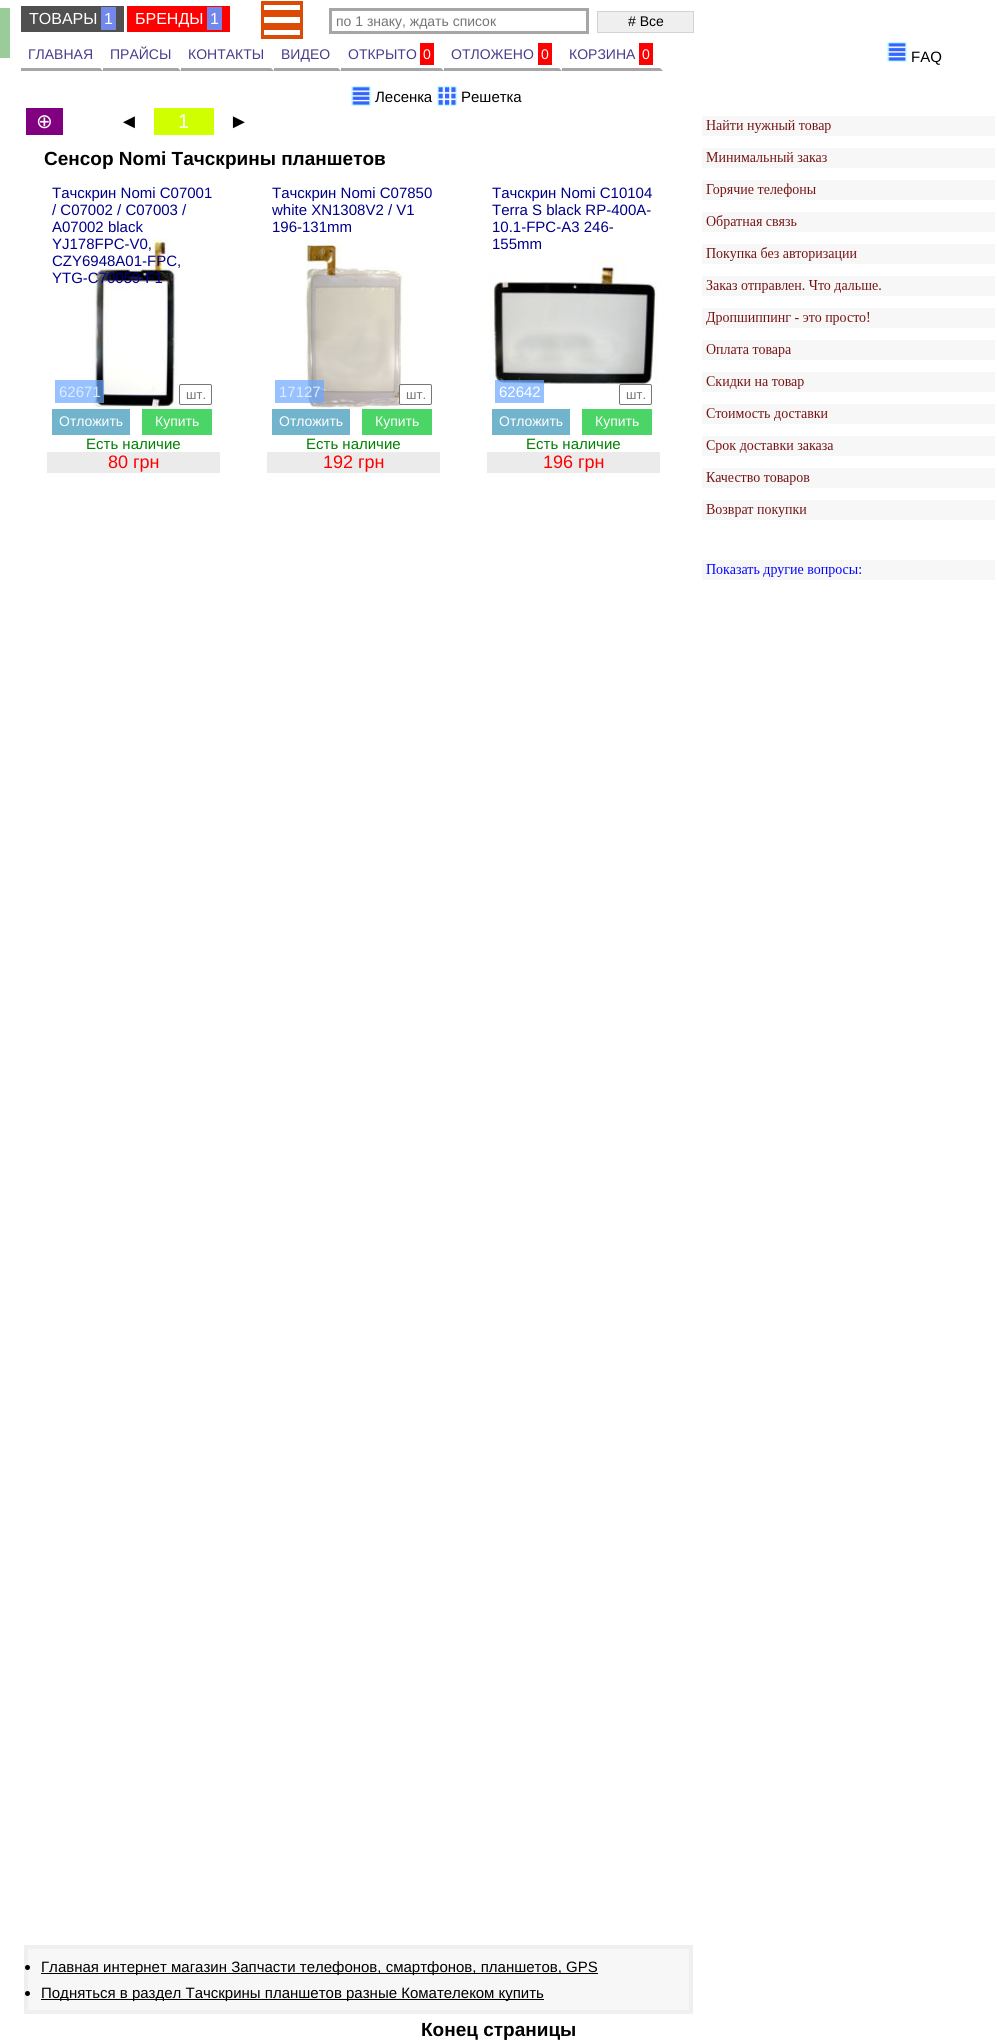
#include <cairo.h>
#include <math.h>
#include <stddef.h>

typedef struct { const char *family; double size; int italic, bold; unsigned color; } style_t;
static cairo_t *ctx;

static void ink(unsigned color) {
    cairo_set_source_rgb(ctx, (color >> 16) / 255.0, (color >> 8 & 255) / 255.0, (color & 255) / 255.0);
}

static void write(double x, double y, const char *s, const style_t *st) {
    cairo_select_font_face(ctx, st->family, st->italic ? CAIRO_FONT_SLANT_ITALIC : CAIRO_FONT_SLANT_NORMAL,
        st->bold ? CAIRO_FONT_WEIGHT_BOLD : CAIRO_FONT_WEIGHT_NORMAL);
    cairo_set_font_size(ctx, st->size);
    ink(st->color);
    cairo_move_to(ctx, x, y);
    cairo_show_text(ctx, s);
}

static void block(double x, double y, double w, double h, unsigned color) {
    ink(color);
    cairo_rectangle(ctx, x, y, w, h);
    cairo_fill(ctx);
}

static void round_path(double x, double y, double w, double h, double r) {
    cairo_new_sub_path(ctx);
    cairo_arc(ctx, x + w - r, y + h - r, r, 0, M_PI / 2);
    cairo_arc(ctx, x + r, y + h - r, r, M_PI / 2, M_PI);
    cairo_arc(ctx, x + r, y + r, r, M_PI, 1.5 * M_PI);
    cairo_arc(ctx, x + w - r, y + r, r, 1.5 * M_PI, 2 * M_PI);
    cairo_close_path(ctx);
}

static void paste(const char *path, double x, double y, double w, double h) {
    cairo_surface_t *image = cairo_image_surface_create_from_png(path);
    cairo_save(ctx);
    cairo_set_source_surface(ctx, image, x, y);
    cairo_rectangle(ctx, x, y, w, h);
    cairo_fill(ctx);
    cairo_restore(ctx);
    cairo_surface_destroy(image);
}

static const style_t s1 = {"Liberation Sans", 16, 0, 0, 0xffffff};
static const style_t s2 = {"Liberation Sans", 19, 0, 1, 0x000000};
static const style_t s3 = {"Liberation Sans", 14, 0, 0, 0x757575};
static const style_t s4 = {"Liberation Sans", 14, 0, 0, 0x000000};
static const style_t s5 = {"Liberation Sans", 14, 0, 0, 0x483d8b};
static const style_t s6 = {"Liberation Sans", 14, 0, 0, 0xffffff};
static const style_t s7 = {"DejaVu Sans", 20, 0, 0, 0xffffff};
static const style_t s8 = {"Liberation Sans", 20, 0, 0, 0x000000};
static const style_t s9 = {"Liberation Sans", 20, 0, 0, 0xffffff};
static const style_t s10 = {"Liberation Sans", 15, 0, 0, 0x000000};
static const style_t s11 = {"Liberation Sans", 15, 0, 0, 0x00008b};
static const style_t s12 = {"Liberation Sans", 15, 0, 0, 0xdeebfd};
static const style_t s13 = {"Liberation Sans", 13, 0, 0, 0x757575};
static const style_t s14 = {"Liberation Sans", 15, 0, 0, 0x008000};
static const style_t s15 = {"Liberation Sans", 18, 0, 0, 0xff0000};
static const style_t s16 = {"Liberation Sans", 15, 0, 0, 0xffffff};

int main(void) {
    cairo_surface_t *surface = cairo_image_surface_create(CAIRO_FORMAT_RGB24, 998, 2041);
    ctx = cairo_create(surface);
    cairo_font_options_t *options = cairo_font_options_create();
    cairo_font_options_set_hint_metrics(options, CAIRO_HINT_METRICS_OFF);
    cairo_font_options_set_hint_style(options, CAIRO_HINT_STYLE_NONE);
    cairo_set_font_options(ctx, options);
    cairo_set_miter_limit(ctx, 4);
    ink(0xffffff);
    cairo_paint(ctx);
    block(0, 8, 10, 50, 0x99cc99);
    block(21, 6, 103, 26, 0x505050);
    write(29, 24, "ТОВАРЫ", &s1);
    block(101, 7, 15, 23, 0x7288eb);
    write(104, 24, "1", &s1);
    block(127, 6, 103, 26, 0xff0000);
    write(135, 24, "БРЕНДЫ", &s1);
    block(207, 7, 15, 23, 0x7288eb);
    write(210, 24, "1", &s1);
    write(421, 2036, "Конец страницы", &s2);
    block(261, 1, 42, 38, 0xdc4b05);
    block(264, 5, 36, 5, 0xffffff);
    block(264, 17, 36, 6, 0xffffff);
    block(264, 30, 36, 5, 0xffffff);
    cairo_rectangle(ctx, 330.5, 9.5, 257, 23);
    ink(0xa6a6a6);
    cairo_set_line_width(ctx, 3);
    cairo_stroke(ctx);
    write(336, 26, "по 1 знаку, ждать список", &s3);
    ink(0xefefef);
    cairo_rectangle(ctx, 597.5, 11.5, 96, 21);
    cairo_fill_preserve(ctx);
    ink(0xd3d3d3);
    cairo_set_line_width(ctx, 1);
    cairo_stroke(ctx);
    write(628, 26, "# Все", &s4);
    ink(0xa6a6a6);
    cairo_new_path(ctx);
    cairo_move_to(ctx, 103, 71);
    cairo_line_to(ctx, 21, 71);
    cairo_line_to(ctx, 21, 68);
    cairo_line_to(ctx, 100, 68);
    cairo_close_path(ctx);
    cairo_fill(ctx);
    write(28, 59, "ГЛАВНАЯ", &s5);
    ink(0xa6a6a6);
    cairo_new_path(ctx);
    cairo_move_to(ctx, 181, 71);
    cairo_line_to(ctx, 103, 71);
    cairo_line_to(ctx, 103, 68);
    cairo_line_to(ctx, 178, 68);
    cairo_close_path(ctx);
    cairo_fill(ctx);
    write(110, 59, "ПРАЙСЫ", &s5);
    ink(0xa6a6a6);
    cairo_new_path(ctx);
    cairo_move_to(ctx, 274, 71);
    cairo_line_to(ctx, 181, 71);
    cairo_line_to(ctx, 181, 68);
    cairo_line_to(ctx, 271, 68);
    cairo_close_path(ctx);
    cairo_fill(ctx);
    write(188, 59, "КОНТАКТЫ", &s5);
    ink(0xa6a6a6);
    cairo_new_path(ctx);
    cairo_move_to(ctx, 341, 71);
    cairo_line_to(ctx, 274, 71);
    cairo_line_to(ctx, 274, 68);
    cairo_line_to(ctx, 338, 68);
    cairo_close_path(ctx);
    cairo_fill(ctx);
    write(281, 59, "ВИДЕО", &s5);
    ink(0xa6a6a6);
    cairo_new_path(ctx);
    cairo_move_to(ctx, 444, 71);
    cairo_line_to(ctx, 341, 71);
    cairo_line_to(ctx, 341, 68);
    cairo_line_to(ctx, 441, 68);
    cairo_close_path(ctx);
    cairo_fill(ctx);
    write(348, 59, "ОТКРЫТО", &s5);
    block(420, 43, 14, 22, 0xff0000);
    write(423, 59, "0", &s6);
    ink(0xa6a6a6);
    cairo_new_path(ctx);
    cairo_move_to(ctx, 562, 71);
    cairo_line_to(ctx, 444, 71);
    cairo_line_to(ctx, 444, 68);
    cairo_line_to(ctx, 559, 68);
    cairo_close_path(ctx);
    cairo_fill(ctx);
    write(451, 59, "ОТЛОЖЕНО", &s5);
    block(538, 43, 14, 22, 0xff0000);
    write(541, 59, "0", &s6);
    ink(0xa6a6a6);
    cairo_new_path(ctx);
    cairo_move_to(ctx, 663, 71);
    cairo_line_to(ctx, 562, 71);
    cairo_line_to(ctx, 562, 68);
    cairo_line_to(ctx, 660, 68);
    cairo_close_path(ctx);
    cairo_fill(ctx);
    write(569, 59, "КОРЗИНА", &s5);
    block(639, 43, 14, 22, 0xff0000);
    write(642, 59, "0", &s6);
    block(26, 108, 37, 27, 0x800080);
    write(36, 128, "⊕", &s7);
    write(119, 128, "◄", &s8);
    block(154, 108, 60, 27, 0xd0ff00);
    write(178, 128, "1", &s9);
    write(229, 128, "►", &s8);
    paste("pic1.png", 887, 42, 20, 20);
    write(911, 62, "FAQ", &s10);
    paste("pic2.png", 702, 116, 293, 464);
    paste("pic1.png", 351, 86, 20, 20);
    write(375, 102, "Лесенка", &s10);
    paste("pic3.png", 437, 86, 20, 20);
    write(461, 102, "Решетка", &s10);
    write(44, 165, "Сенсор Nomi Тачскрины планшетов", &s2);
    write(52, 198, "Тачскрин Nomi C07001", &s11);
    write(52, 215, "/ C07002 / C07003 /", &s11);
    write(52, 232, "A07002 black", &s11);
    paste("pic4.png", 91, 239, 87, 170);
    write(52, 249, "YJ178FPC-V0,", &s11);
    write(52, 266, "CZY6948A01-FPC,", &s11);
    write(52, 283, "YTG-C70059-F1", &s11);
    cairo_set_source_rgba(ctx, 0.42, 0.659, 1, 0.7);
    cairo_rectangle(ctx, 55, 380, 49, 23);
    cairo_fill(ctx);
    write(59, 397, "62671", &s12);
    round_path(179.5, 384.5, 32, 20, 1.5);
    ink(0x767676);
    cairo_stroke(ctx);
    write(186, 399, "шт.", &s13);
    block(52, 409, 78, 26, 0x71b4cc);
    write(59, 426, "Отложить", &s6);
    block(142, 409, 70, 26, 0x4bd566);
    write(155, 426, "Купить", &s6);
    write(86, 449, "Есть наличие", &s14);
    block(47, 452, 173, 21, 0xebebeb);
    write(108, 468, "80 грн", &s15);
    write(272, 198, "Тачскрин Nomi C07850", &s11);
    write(272, 215, "white XN1308V2 / V1", &s11);
    write(272, 232, "196-131mm", &s11);
    paste("pic5.png", 303, 239, 101, 170);
    cairo_set_source_rgba(ctx, 0.42, 0.659, 1, 0.7);
    cairo_rectangle(ctx, 275, 380, 49, 23);
    cairo_fill(ctx);
    write(279, 397, "17127", &s12);
    ink(0xffffff);
    round_path(399.5, 384.5, 32, 20, 1.5);
    cairo_fill_preserve(ctx);
    ink(0x767676);
    cairo_stroke(ctx);
    write(406, 399, "шт.", &s13);
    block(272, 409, 78, 26, 0x71b4cc);
    write(279, 426, "Отложить", &s6);
    block(362, 409, 70, 26, 0x4bd566);
    write(375, 426, "Купить", &s6);
    write(306, 449, "Есть наличие", &s14);
    block(267, 452, 173, 21, 0xebebeb);
    write(323, 468, "192 грн", &s15);
    write(492, 198, "Тачскрин Nomi C10104", &s11);
    write(492, 215, "Terra S black RP-400A-", &s11);
    write(492, 232, "10.1-FPC-A3 246-", &s11);
    write(492, 249, "155mm", &s11);
    paste("pic6.png", 489, 256, 170, 129);
    cairo_set_source_rgba(ctx, 0.42, 0.659, 1, 0.7);
    cairo_rectangle(ctx, 495, 380, 49, 23);
    cairo_fill(ctx);
    write(499, 397, "62642", &s16);
    round_path(619.5, 384.5, 32, 20, 1.5);
    cairo_fill_preserve(ctx);
    ink(0x767676);
    cairo_stroke(ctx);
    write(626, 399, "шт.", &s13);
    block(492, 409, 78, 26, 0x71b4cc);
    write(499, 426, "Отложить", &s6);
    block(582, 409, 70, 26, 0x4bd566);
    write(595, 426, "Купить", &s6);
    write(526, 449, "Есть наличие", &s14);
    block(487, 452, 173, 21, 0xebebeb);
    write(543, 468, "196 грн", &s15);
    ink(0xf7f7f7);
    cairo_rectangle(ctx, 26, 1947, 665, 65);
    cairo_fill_preserve(ctx);
    ink(0xefefef);
    cairo_set_line_width(ctx, 4);
    cairo_stroke(ctx);
    ink(0x000000);
    cairo_arc(ctx, 27.5, 1967.5, 2.5, 0, 2 * M_PI);
    cairo_fill(ctx);
    block(41, 1973, 557, 1, 0x000000);
    write(41, 1972, "Главная интернет магазин Запчасти телефонов, смартфонов, планшетов, GPS", &s10);
    cairo_new_path(ctx);
    cairo_arc(ctx, 27.5, 1993.5, 2.5, 0, 2 * M_PI);
    cairo_fill(ctx);
    block(41, 1999, 503, 1, 0x000000);
    write(41, 1998, "Подняться в раздел Тачскрины планшетов разные Комателеком купить", &s10);
    cairo_surface_write_to_png(surface, "screenshot.png");
    cairo_font_options_destroy(options);
    cairo_destroy(ctx);
    cairo_surface_destroy(surface);
    return 0;
}
